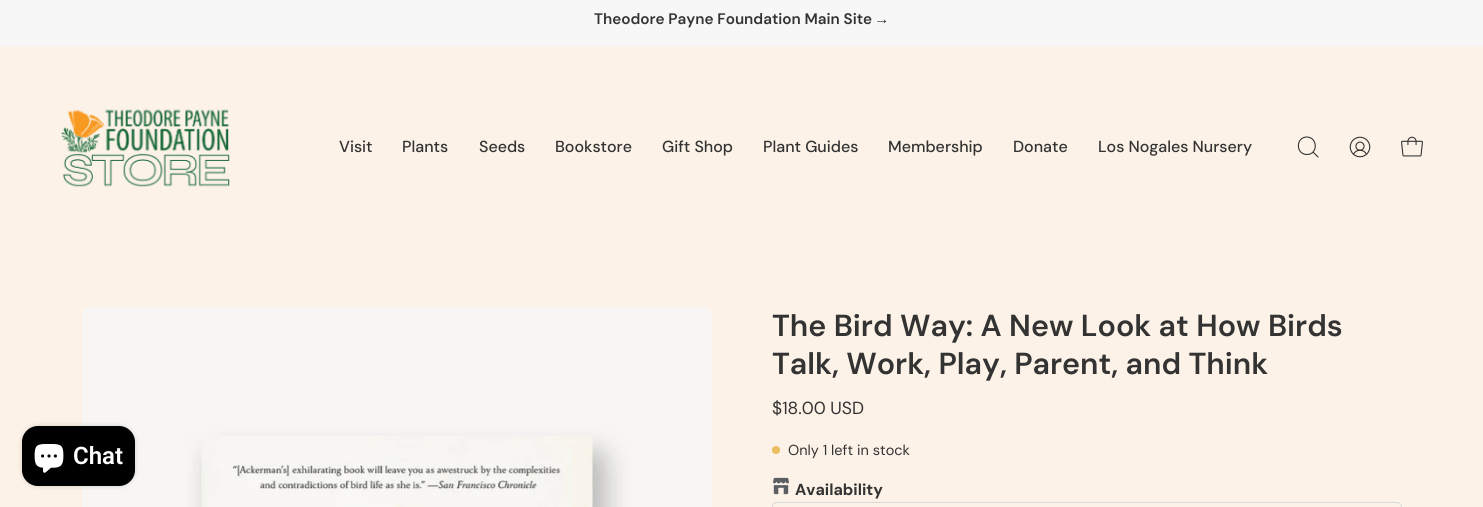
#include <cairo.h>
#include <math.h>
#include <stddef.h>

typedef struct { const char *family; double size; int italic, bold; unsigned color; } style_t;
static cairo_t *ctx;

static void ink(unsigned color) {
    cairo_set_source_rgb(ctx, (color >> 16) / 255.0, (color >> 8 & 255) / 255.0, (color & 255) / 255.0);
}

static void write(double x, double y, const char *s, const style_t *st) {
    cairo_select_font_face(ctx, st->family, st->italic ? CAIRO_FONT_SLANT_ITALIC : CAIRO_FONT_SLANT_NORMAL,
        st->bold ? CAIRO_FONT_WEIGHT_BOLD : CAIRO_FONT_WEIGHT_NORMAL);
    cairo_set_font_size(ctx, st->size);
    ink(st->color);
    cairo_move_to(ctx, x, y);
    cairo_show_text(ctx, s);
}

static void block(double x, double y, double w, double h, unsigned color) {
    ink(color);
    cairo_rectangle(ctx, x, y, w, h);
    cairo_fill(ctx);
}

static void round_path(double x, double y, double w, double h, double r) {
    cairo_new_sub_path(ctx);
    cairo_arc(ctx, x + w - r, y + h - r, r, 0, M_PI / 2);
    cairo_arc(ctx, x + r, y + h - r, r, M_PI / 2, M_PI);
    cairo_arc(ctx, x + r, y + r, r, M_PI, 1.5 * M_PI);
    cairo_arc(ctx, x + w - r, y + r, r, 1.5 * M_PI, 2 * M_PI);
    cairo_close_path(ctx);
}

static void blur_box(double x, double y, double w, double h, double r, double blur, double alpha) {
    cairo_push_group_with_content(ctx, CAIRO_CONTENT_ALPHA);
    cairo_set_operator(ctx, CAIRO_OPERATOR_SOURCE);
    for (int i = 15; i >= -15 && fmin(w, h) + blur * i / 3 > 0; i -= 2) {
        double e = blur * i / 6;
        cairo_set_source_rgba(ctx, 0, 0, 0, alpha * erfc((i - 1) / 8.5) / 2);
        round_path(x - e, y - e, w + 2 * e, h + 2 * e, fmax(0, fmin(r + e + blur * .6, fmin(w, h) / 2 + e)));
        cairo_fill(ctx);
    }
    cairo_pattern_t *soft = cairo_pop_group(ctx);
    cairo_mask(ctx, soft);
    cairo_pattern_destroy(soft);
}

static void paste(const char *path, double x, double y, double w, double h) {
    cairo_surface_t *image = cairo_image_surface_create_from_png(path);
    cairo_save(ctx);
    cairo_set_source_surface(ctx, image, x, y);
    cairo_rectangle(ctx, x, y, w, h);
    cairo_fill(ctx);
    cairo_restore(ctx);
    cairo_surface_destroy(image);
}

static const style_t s1 = {"DM Sans SemiBold", 15.25, 0, 0, 0x333333};
static const style_t s2 = {"Liberation Sans", 15.25, 0, 1, 0x333333};
static const style_t s3 = {"DM Sans Medium", 16, 0, 0, 0x333333};
static const style_t s4 = {"Roboto SemiBold", 24, 0, 0, 0xffffff};
static const style_t s5 = {"DM Sans SemiBold", 30.4, 0, 0, 0x333333};
static const style_t s6 = {"DM Sans", 17.5, 0, 0, 0x333333};
static const style_t s7 = {"DM Sans", 14.5, 0, 0, 0x333333};
static const style_t s8 = {"DM Sans", 16, 0, 1, 0x333333};

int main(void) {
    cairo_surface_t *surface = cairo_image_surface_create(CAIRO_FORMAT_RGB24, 1483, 507);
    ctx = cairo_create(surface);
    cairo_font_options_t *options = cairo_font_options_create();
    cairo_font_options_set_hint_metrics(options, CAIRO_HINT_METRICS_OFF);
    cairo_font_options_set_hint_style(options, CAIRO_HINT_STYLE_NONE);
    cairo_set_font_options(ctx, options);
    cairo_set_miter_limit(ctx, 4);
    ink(0xfcf2e7);
    cairo_paint(ctx);
    block(0, 0, 1483, 47, 0xf7f7f7);
    write(594, 24, "Theodore Payne Foundation Main Site", &s1);
    write(874, 24, "→", &s2);
    paste("pic1.png", 61, 109, 169, 78);
    write(339, 152, "Visit", &s3);
    write(402, 152, "Plants", &s3);
    write(479, 152, "Seeds", &s3);
    write(555, 152, "Bookstore", &s3);
    write(662, 152, "Gift Shop", &s3);
    write(763, 152, "Plant Guides", &s3);
    write(888, 152, "Membership", &s3);
    write(1013, 152, "Donate", &s3);
    write(1098, 152, "Los Nogales Nursery", &s3);
    cairo_new_path(ctx);
    cairo_move_to(ctx, 1307, 154.5);
    cairo_curve_to(ctx, 1318, 154.5, 1318, 137.5, 1307, 137);
    cairo_curve_to(ctx, 1295.5, 137, 1295.5, 154.5, 1307, 154.5);
    cairo_close_path(ctx);
    cairo_move_to(ctx, 1313, 152);
    cairo_line_to(ctx, 1318, 157);
    cairo_set_line_width(ctx, 1.1);
    cairo_set_line_cap(ctx, CAIRO_LINE_CAP_ROUND);
    cairo_set_line_join(ctx, CAIRO_LINE_JOIN_ROUND);
    cairo_stroke(ctx);
    paste("pic2.png", 1349, 136, 22, 22);
    paste("pic3.png", 1401, 136, 22, 21);
    paste("pic5.png", 82, 307, 630, 200);
    ink(0x000000);
    blur_box(22, 426, 113, 60, 16, 2.5, 0.15);
    ink(0x000000);
    round_path(22, 426, 113, 60, 16);
    cairo_fill(ctx);
    paste("pic4.png", 34, 444, 30, 29);
    write(73, 464, "Chat", &s4);
    write(772, 336, "The Bird Way: A New Look at How Birds", &s5);
    write(772, 374, "Talk, Work, Play, Parent, and Think", &s5);
    write(772, 414, "$18.00 USD", &s6);
    ink(0xecbd5e);
    cairo_new_path(ctx);
    cairo_arc(ctx, 776, 450, 4, 0, 2 * M_PI);
    cairo_fill(ctx);
    write(788, 455, "Only 1 left in stock", &s7);
    paste("pic6.png", 773, 477, 16, 18);
    write(795, 495, "Availability", &s8);
    round_path(772.5, 502.5, 629, 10, 4.5);
    ink(0xd9d9d9);
    cairo_set_line_width(ctx, 1);
    cairo_set_line_cap(ctx, CAIRO_LINE_CAP_BUTT);
    cairo_set_line_join(ctx, CAIRO_LINE_JOIN_MITER);
    cairo_stroke(ctx);
    cairo_surface_write_to_png(surface, "screenshot.png");
    cairo_font_options_destroy(options);
    cairo_destroy(ctx);
    cairo_surface_destroy(surface);
    return 0;
}
